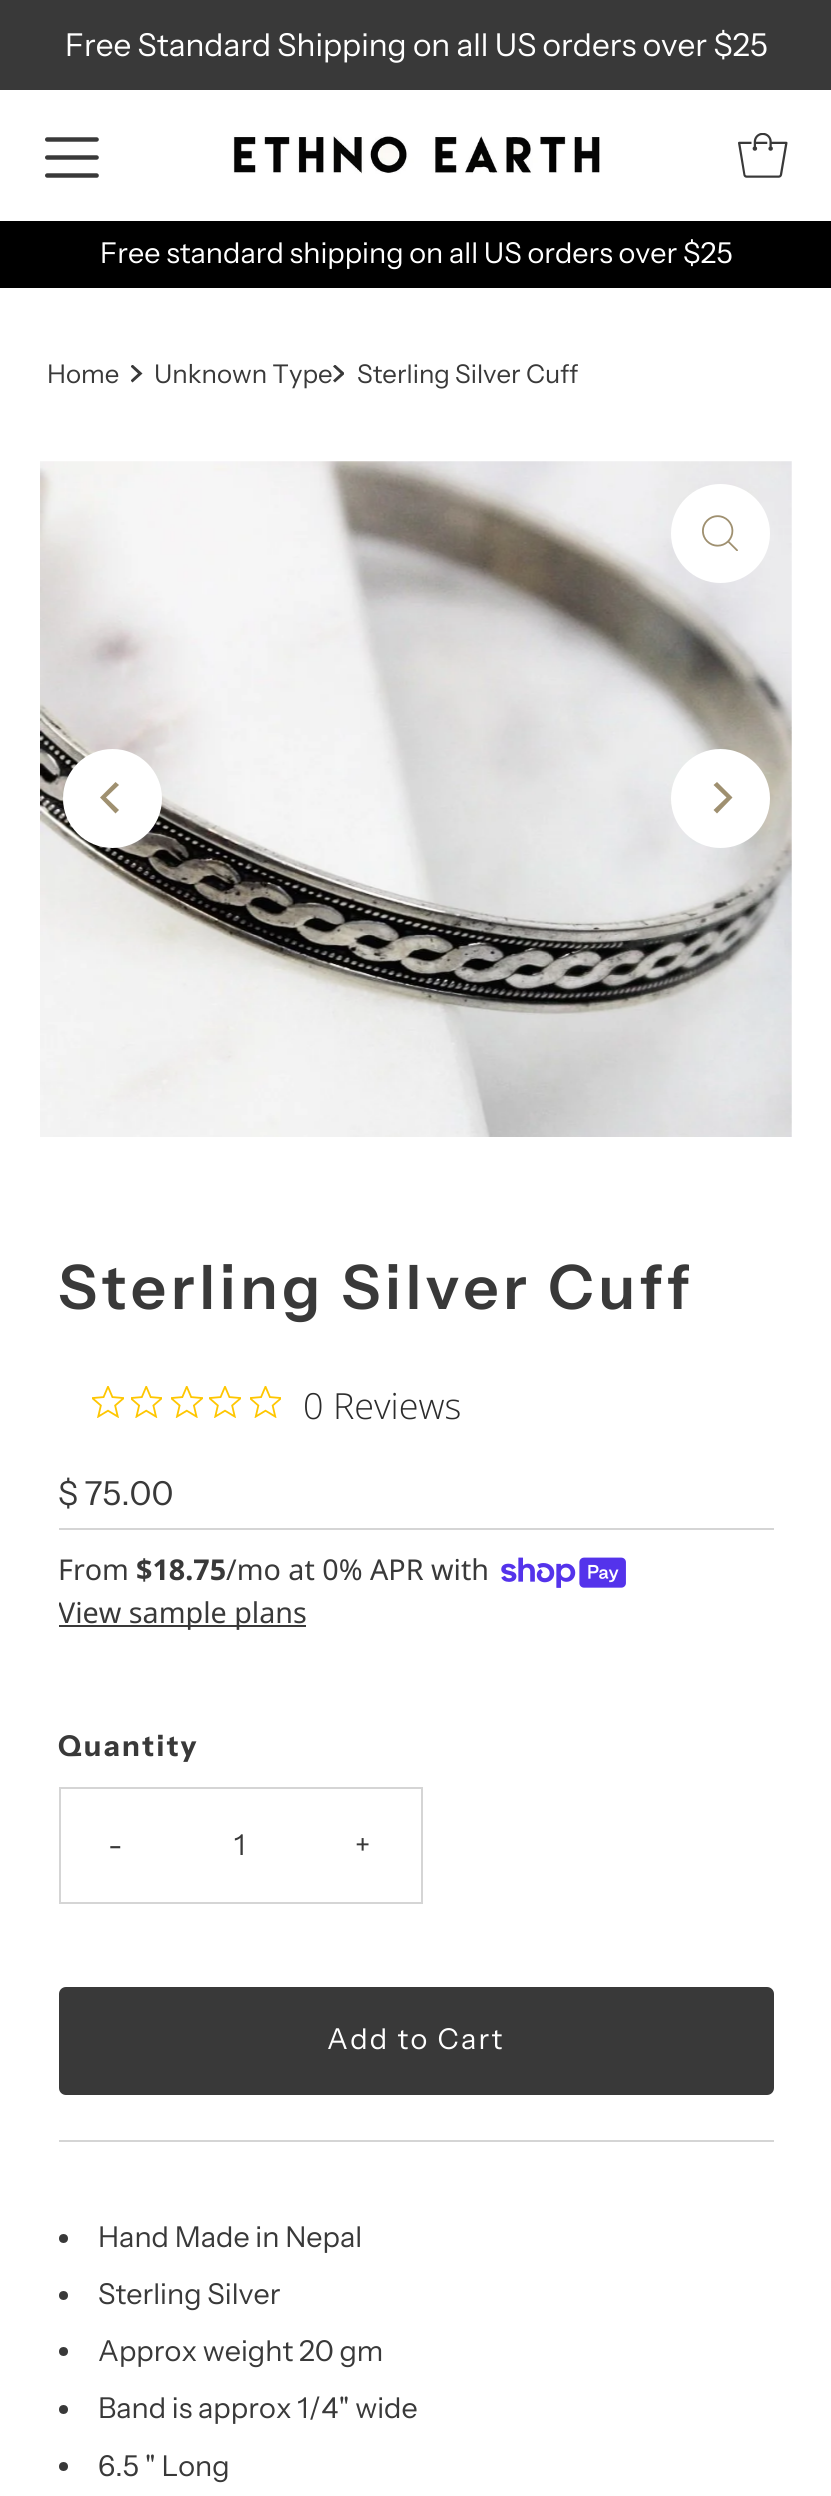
#include <cairo.h>
#include <math.h>
#include <stddef.h>

typedef struct { const char *family; double size; int italic, bold; unsigned color; } style_t;
static cairo_t *ctx;

static void ink(unsigned color) {
    cairo_set_source_rgb(ctx, (color >> 16) / 255.0, (color >> 8 & 255) / 255.0, (color & 255) / 255.0);
}

static void write(double x, double y, const char *s, const style_t *st) {
    cairo_select_font_face(ctx, st->family, st->italic ? CAIRO_FONT_SLANT_ITALIC : CAIRO_FONT_SLANT_NORMAL,
        st->bold ? CAIRO_FONT_WEIGHT_BOLD : CAIRO_FONT_WEIGHT_NORMAL);
    cairo_set_font_size(ctx, st->size);
    ink(st->color);
    cairo_move_to(ctx, x, y);
    cairo_show_text(ctx, s);
}

static void write_spaced(double x, double y, const char *s, double letter, double word) {
    cairo_move_to(ctx, x, y);
    while (*s) {
        char ch[5] = {0};
        int n = 0;
        do ch[n++] = *s++; while ((*s & 0xC0) == 0x80);
        cairo_show_text(ctx, ch);
        cairo_rel_move_to(ctx, letter + word * (*ch == ' '), 0);
    }
}

static void block(double x, double y, double w, double h, unsigned color) {
    ink(color);
    cairo_rectangle(ctx, x, y, w, h);
    cairo_fill(ctx);
}

static void round_path(double x, double y, double w, double h, double r) {
    cairo_new_sub_path(ctx);
    cairo_arc(ctx, x + w - r, y + h - r, r, 0, M_PI / 2);
    cairo_arc(ctx, x + r, y + h - r, r, M_PI / 2, M_PI);
    cairo_arc(ctx, x + r, y + r, r, M_PI, 1.5 * M_PI);
    cairo_arc(ctx, x + w - r, y + r, r, 1.5 * M_PI, 2 * M_PI);
    cairo_close_path(ctx);
}

static void paste(const char *path, double x, double y, double w, double h) {
    cairo_surface_t *image = cairo_image_surface_create_from_png(path);
    cairo_save(ctx);
    cairo_set_source_surface(ctx, image, x, y);
    cairo_rectangle(ctx, x, y, w, h);
    cairo_fill(ctx);
    cairo_restore(ctx);
    cairo_surface_destroy(image);
}

static const style_t s1 = {"Instrument Sans", 31.5, 0, 0, 0xffffff};
static const style_t s2 = {"Instrument Sans", 28.7, 0, 0, 0xffffff};
static const style_t s3 = {"Instrument Sans", 25.75, 0, 0, 0x393939};
static const style_t s4 = {"Open Sans Light", 36, 0, 0, 0x2c2c2c};
static const style_t s5 = {"Instrument Sans", 33, 0, 0, 0x393939};
static const style_t s6 = {"Noto Sans", 28.7, 0, 0, 0x393939};
static const style_t s7 = {"Noto Sans", 28.7, 0, 1, 0x393939};
static const style_t s8 = {"Instrument Sans", 28.7, 0, 0, 0x393939};

int main(void) {
    cairo_surface_t *surface = cairo_image_surface_create(CAIRO_FORMAT_RGB24, 831, 2496);
    ctx = cairo_create(surface);
    cairo_font_options_t *options = cairo_font_options_create();
    cairo_font_options_set_hint_metrics(options, CAIRO_HINT_METRICS_OFF);
    cairo_font_options_set_hint_style(options, CAIRO_HINT_STYLE_NONE);
    cairo_set_font_options(ctx, options);
    cairo_set_miter_limit(ctx, 4);
    ink(0xffffff);
    cairo_paint(ctx);
    block(0, 0, 831, 90, 0x393939);
    write(65, 56, "Free Standard Shipping on all US orders over $25", &s1);
    paste("pic1.png", 45, 137, 54, 41);
    paste("pic2.png", 233, 135, 367, 39);
    paste("pic3.png", 738, 133, 50, 45);
    block(0, 221, 831, 67, 0x000000);
    write(100, 263, "Free standard shipping on all US orders over $25", &s2);
    write(47, 383, "Home", &s3);
    cairo_save(ctx);
    cairo_rectangle(ctx, 131, 365, 13, 18);
    cairo_clip(ctx);
    cairo_new_path(ctx);
    cairo_move_to(ctx, 130.5, 366.5);
    cairo_line_to(ctx, 132.5, 364.5);
    cairo_line_to(ctx, 142.5, 373.5);
    cairo_line_to(ctx, 132.5, 382.5);
    cairo_line_to(ctx, 130.5, 380.5);
    cairo_line_to(ctx, 138, 373.5);
    cairo_close_path(ctx);
    cairo_fill(ctx);
    cairo_restore(ctx);
    write(154, 383, "Unknown Type", &s3);
    cairo_save(ctx);
    cairo_rectangle(ctx, 333, 365, 11, 18);
    cairo_clip(ctx);
    cairo_new_path(ctx);
    cairo_move_to(ctx, 333, 366.5);
    cairo_line_to(ctx, 335, 364.5);
    cairo_line_to(ctx, 345, 373.5);
    cairo_line_to(ctx, 335, 382.5);
    cairo_line_to(ctx, 333, 380.5);
    cairo_line_to(ctx, 340.5, 373.5);
    cairo_close_path(ctx);
    cairo_fill(ctx);
    cairo_restore(ctx);
    write(357, 383, "Sterling Silver Cuff", &s3);
    paste("pic4.png", 40, 461, 752, 676);
    ink(0xffffff);
    cairo_arc(ctx, 720.5, 533.5, 49.5, 0, 2 * M_PI);
    cairo_fill(ctx);
    paste("pic5.png", 702, 515, 36, 36);
    cairo_arc(ctx, 112.5, 798.5, 49.5, 0, 2 * M_PI);
    cairo_fill(ctx);
    ink(0x9f9070);
    cairo_new_path(ctx);
    cairo_move_to(ctx, 100, 797.5);
    cairo_line_to(ctx, 115.5, 813.5);
    cairo_line_to(ctx, 119, 810);
    cairo_line_to(ctx, 106, 797.5);
    cairo_line_to(ctx, 119, 785);
    cairo_line_to(ctx, 115.5, 782);
    cairo_close_path(ctx);
    cairo_fill(ctx);
    ink(0xffffff);
    cairo_arc(ctx, 720.5, 798.5, 49.5, 0, 2 * M_PI);
    cairo_fill(ctx);
    ink(0x9f9070);
    cairo_new_path(ctx);
    cairo_move_to(ctx, 732.5, 797.5);
    cairo_line_to(ctx, 717, 782);
    cairo_line_to(ctx, 713.5, 785);
    cairo_line_to(ctx, 726.5, 797.5);
    cairo_line_to(ctx, 713.5, 810);
    cairo_line_to(ctx, 717, 813.5);
    cairo_close_path(ctx);
    cairo_fill(ctx);
    cairo_select_font_face(ctx, "Instrument Sans SemiBold", CAIRO_FONT_SLANT_NORMAL, CAIRO_FONT_WEIGHT_NORMAL);
    cairo_set_font_size(ctx, 61.25);
    ink(0x393939);
    write_spaced(58, 1309, "Sterling Silver Cuff", 4.6, 0);
    paste("pic6.png", 92, 1386, 32, 32);
    paste("pic7.png", 131, 1386, 31, 32);
    paste("pic8.png", 171, 1386, 32, 32);
    paste("pic6.png", 209, 1386, 32, 32);
    paste("pic9.png", 250, 1386, 31, 32);
    write(303, 1419, "0 Reviews", &s4);
    block(59, 1528, 715, 2, 0xd5d5d5);
    write(58, 1505, "$ 75.00", &s5);
    write(58, 1580, "From", &s6);
    write(136, 1580, "$18.75", &s7);
    write(226, 1580, "/mo at 0% APR with", &s6);
    paste("pic10.png", 501, 1557, 125, 31);
    block(59, 1625, 247, 2, 0x393939);
    cairo_save(ctx);
    cairo_rectangle(ctx, 59, 1591, 247, 43);
    cairo_clip(ctx);
    write(58, 1623, "View sample plans", &s6);
    cairo_restore(ctx);
    cairo_select_font_face(ctx, "Instrument Sans", CAIRO_FONT_SLANT_NORMAL, CAIRO_FONT_WEIGHT_BOLD);
    write_spaced(58, 1756, "Quantity", 2.25, 0);
    cairo_rectangle(ctx, 60, 1788, 362, 115);
    ink(0xd5d5d5);
    cairo_stroke(ctx);
    cairo_select_font_face(ctx, "Instrument Sans", CAIRO_FONT_SLANT_NORMAL, CAIRO_FONT_WEIGHT_NORMAL);
    ink(0x393939);
    write_spaced(108, 1855, "-", 2.25, 0);
    write(234, 1855, "1", &s8);
    write_spaced(355, 1855, "+", 2.25, 0);
    block(59, 2140, 715, 2, 0xd5d5d5);
    ink(0x393939);
    round_path(59, 1987, 715, 108, 7);
    cairo_fill(ctx);
    ink(0xffffff);
    write_spaced(327, 2049, "Add to Cart", 2.25, 0);
    ink(0x393939);
    cairo_new_path(ctx);
    cairo_arc(ctx, 63.5, 2238.5, 4.5, 0, 2 * M_PI);
    cairo_fill(ctx);
    write(98, 2247, "Hand Made in Nepal", &s8);
    cairo_new_path(ctx);
    cairo_arc(ctx, 63.5, 2295.5, 4.5, 0, 2 * M_PI);
    cairo_fill(ctx);
    write(98, 2304, "Sterling Silver", &s8);
    cairo_new_path(ctx);
    cairo_arc(ctx, 63.5, 2351.5, 4.5, 0, 2 * M_PI);
    cairo_fill(ctx);
    write(98, 2361, "Approx weight 20 gm", &s8);
    cairo_new_path(ctx);
    cairo_arc(ctx, 63.5, 2409.5, 4.5, 0, 2 * M_PI);
    cairo_fill(ctx);
    write(98, 2418, "Band is approx 1/4\" wide", &s8);
    cairo_new_path(ctx);
    cairo_arc(ctx, 63.5, 2466.5, 4.5, 0, 2 * M_PI);
    cairo_fill(ctx);
    write(98, 2476, "6.5 \" Long", &s8);
    cairo_surface_write_to_png(surface, "screenshot.png");
    cairo_font_options_destroy(options);
    cairo_destroy(ctx);
    cairo_surface_destroy(surface);
    return 0;
}
